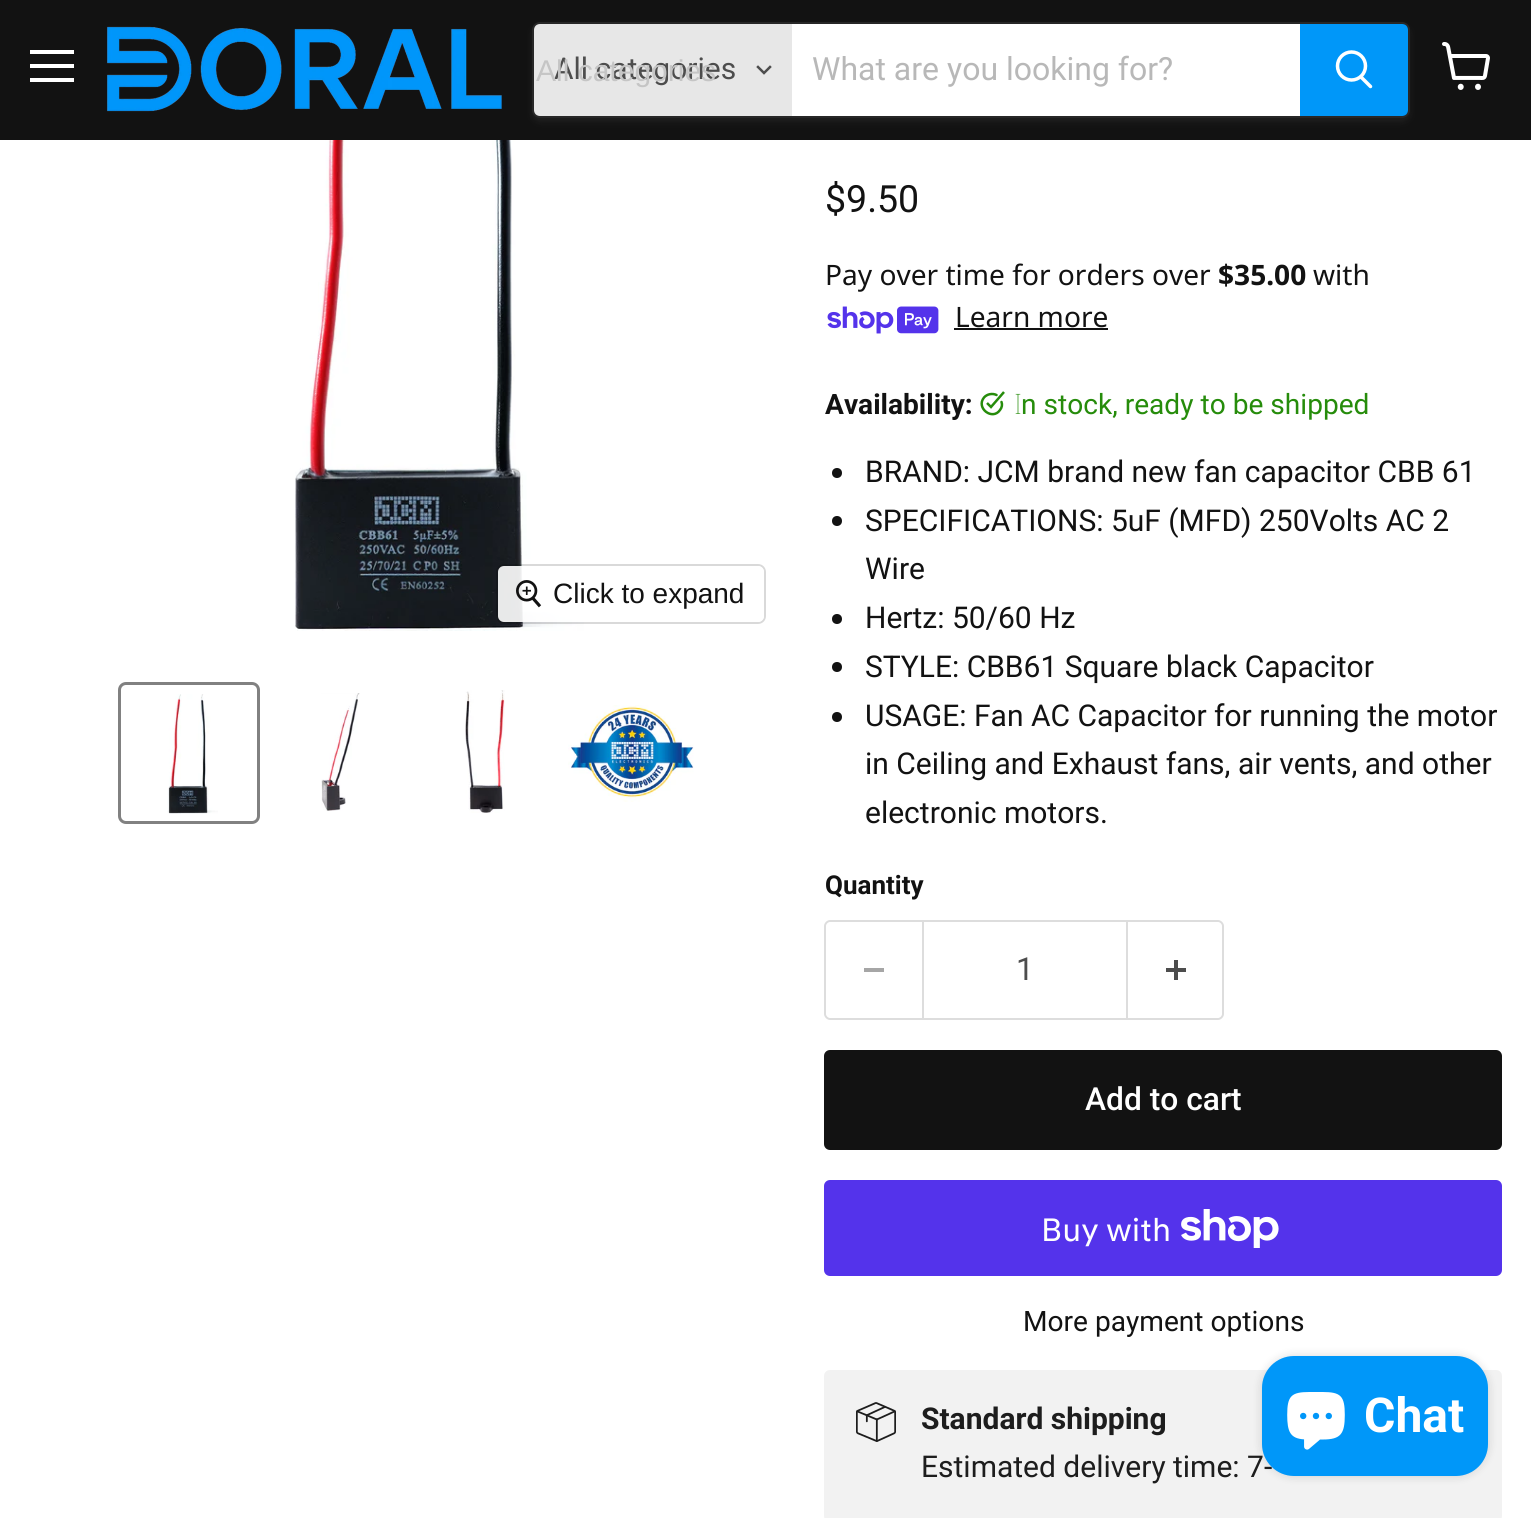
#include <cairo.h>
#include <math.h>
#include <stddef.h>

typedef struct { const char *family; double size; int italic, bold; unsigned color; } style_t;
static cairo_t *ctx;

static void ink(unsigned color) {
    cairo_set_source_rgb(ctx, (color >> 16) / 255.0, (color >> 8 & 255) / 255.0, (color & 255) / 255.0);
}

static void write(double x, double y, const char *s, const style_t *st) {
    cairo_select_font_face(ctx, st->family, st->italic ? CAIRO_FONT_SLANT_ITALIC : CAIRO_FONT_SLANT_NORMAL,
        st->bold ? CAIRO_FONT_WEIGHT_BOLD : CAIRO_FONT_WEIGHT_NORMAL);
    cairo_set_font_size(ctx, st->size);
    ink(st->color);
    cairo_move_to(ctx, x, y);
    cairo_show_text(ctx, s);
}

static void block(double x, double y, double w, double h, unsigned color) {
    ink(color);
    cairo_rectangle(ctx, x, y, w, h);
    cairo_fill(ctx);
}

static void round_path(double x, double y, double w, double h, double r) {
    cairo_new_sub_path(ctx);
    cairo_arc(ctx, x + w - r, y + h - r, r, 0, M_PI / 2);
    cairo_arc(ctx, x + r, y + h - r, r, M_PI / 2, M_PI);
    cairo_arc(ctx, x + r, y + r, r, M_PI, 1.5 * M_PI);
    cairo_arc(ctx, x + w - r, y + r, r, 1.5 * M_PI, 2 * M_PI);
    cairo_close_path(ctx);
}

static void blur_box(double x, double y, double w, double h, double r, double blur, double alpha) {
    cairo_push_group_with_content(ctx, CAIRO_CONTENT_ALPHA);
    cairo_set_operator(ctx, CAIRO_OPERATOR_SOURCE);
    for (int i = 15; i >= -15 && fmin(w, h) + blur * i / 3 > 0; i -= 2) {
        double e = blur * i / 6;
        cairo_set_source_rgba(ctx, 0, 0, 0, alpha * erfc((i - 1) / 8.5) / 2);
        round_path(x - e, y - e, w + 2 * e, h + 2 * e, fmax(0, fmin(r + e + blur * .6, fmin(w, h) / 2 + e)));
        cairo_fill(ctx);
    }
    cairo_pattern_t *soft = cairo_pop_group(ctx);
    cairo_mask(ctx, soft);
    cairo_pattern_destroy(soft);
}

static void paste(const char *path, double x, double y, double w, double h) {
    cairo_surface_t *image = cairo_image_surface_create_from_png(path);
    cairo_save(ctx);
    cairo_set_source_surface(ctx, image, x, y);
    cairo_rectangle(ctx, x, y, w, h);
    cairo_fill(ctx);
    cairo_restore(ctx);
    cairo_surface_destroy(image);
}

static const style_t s1 = {"Roboto", 30, 0, 0, 0x4d4d4d};
static const style_t s2 = {"Liberation Sans", 30, 0, 0, 0xc5c5c5};
static const style_t s3 = {"Roboto", 32, 0, 0, 0xb8b8b8};
static const style_t s4 = {"Liberation Sans", 28, 0, 0, 0x121212};
static const style_t s5 = {"Roboto", 37.5, 0, 0, 0x121212};
static const style_t s6 = {"Noto Sans", 28.1, 0, 0, 0x121212};
static const style_t s7 = {"Noto Sans", 28.1, 0, 1, 0x121212};
static const style_t s8 = {"Roboto", 28.1, 0, 1, 0x121212};
static const style_t s9 = {"Noto Sans Thin", 28.1, 0, 0, 0x268c0b};
static const style_t s10 = {"Roboto", 28.1, 0, 0, 0x268c0b};
static const style_t s11 = {"Roboto", 30, 0, 0, 0x121212};
static const style_t s12 = {"Roboto", 26, 0, 1, 0x121212};
static const style_t s13 = {"Roboto", 31.75, 0, 0, 0x4d4d4d};
static const style_t s14 = {"Roboto Medium", 31.75, 0, 0, 0xffffff};
static const style_t s15 = {"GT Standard", 32, 0, 0, 0xffffff};
static const style_t s16 = {"Roboto", 28.1, 0, 0, 0x121212};
static const style_t s17 = {"Roboto", 30, 0, 1, 0x1d1d1d};
static const style_t s18 = {"Roboto", 30, 0, 0, 0x1d1d1d};
static const style_t s19 = {"Roboto", 48, 0, 1, 0xffffff};

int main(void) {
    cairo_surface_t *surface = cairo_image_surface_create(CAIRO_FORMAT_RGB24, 1531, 1518);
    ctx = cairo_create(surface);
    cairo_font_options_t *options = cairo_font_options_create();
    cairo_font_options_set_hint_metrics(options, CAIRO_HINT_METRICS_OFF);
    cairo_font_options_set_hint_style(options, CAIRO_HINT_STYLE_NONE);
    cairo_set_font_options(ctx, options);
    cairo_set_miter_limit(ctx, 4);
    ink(0xffffff);
    cairo_paint(ctx);
    block(0, 0, 1531, 140, 0x121212);
    block(30, 50, 44, 4, 0xffffff);
    block(30, 64, 44, 4, 0xffffff);
    block(30, 78, 44, 4, 0xffffff);
    paste("pic1.png", 107, 26, 395, 86);
    cairo_save(ctx);
    cairo_set_fill_rule(ctx, CAIRO_FILL_RULE_EVEN_ODD);
    cairo_new_path(ctx);
    cairo_move_to(ctx, 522, 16);
    cairo_line_to(ctx, 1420, 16);
    cairo_line_to(ctx, 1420, 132);
    cairo_line_to(ctx, 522, 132);
    cairo_close_path(ctx);
    cairo_move_to(ctx, 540, 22);
    cairo_line_to(ctx, 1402, 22);
    cairo_curve_to(ctx, 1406.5, 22, 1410, 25.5, 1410, 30);
    cairo_line_to(ctx, 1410, 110);
    cairo_curve_to(ctx, 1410, 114.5, 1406.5, 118, 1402, 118);
    cairo_line_to(ctx, 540, 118);
    cairo_curve_to(ctx, 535.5, 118, 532, 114.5, 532, 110);
    cairo_line_to(ctx, 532, 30);
    cairo_curve_to(ctx, 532, 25.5, 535.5, 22, 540, 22);
    cairo_close_path(ctx);
    cairo_clip(ctx);
    ink(0x808080);
    blur_box(532, 26, 878, 96, 8, 3, 0.11);
    cairo_restore(ctx);
    round_path(533, 23, 876, 94, 7);
    cairo_set_source_rgba(ctx, 0.502, 0.502, 0.502, 0.2);
    cairo_stroke(ctx);
    ink(0xe7e7e7);
    cairo_new_path(ctx);
    cairo_move_to(ctx, 540, 24);
    cairo_line_to(ctx, 792, 24);
    cairo_line_to(ctx, 792, 116);
    cairo_line_to(ctx, 540, 116);
    cairo_curve_to(ctx, 536.5, 116, 534, 113.5, 534, 110);
    cairo_line_to(ctx, 534, 30);
    cairo_curve_to(ctx, 534, 26.5, 536.5, 24, 540, 24);
    cairo_close_path(ctx);
    cairo_fill(ctx);
    write(554, 79, "All categories", &s1);
    write(536, 81, "All categories", &s2);
    cairo_new_path(ctx);
    cairo_move_to(ctx, 764, 73);
    cairo_line_to(ctx, 770, 67);
    cairo_move_to(ctx, 764, 73);
    cairo_line_to(ctx, 758, 67);
    ink(0x4d4d4d);
    cairo_set_line_width(ctx, 2.5);
    cairo_set_line_cap(ctx, CAIRO_LINE_CAP_SQUARE);
    cairo_stroke(ctx);
    block(792, 24, 508, 92, 0xffffff);
    write(812, 80, "What are you looking for?", &s3);
    ink(0x0097f9);
    cairo_new_path(ctx);
    cairo_move_to(ctx, 1301, 25);
    cairo_line_to(ctx, 1402, 25);
    cairo_curve_to(ctx, 1405, 25, 1407, 27, 1407, 30);
    cairo_line_to(ctx, 1407, 110);
    cairo_curve_to(ctx, 1407, 113, 1405, 115, 1402, 115);
    cairo_line_to(ctx, 1301, 115);
    cairo_close_path(ctx);
    cairo_fill_preserve(ctx);
    cairo_set_line_width(ctx, 2);
    cairo_set_line_cap(ctx, CAIRO_LINE_CAP_BUTT);
    cairo_stroke(ctx);
    cairo_new_path(ctx);
    cairo_move_to(ctx, 1370.5, 86.5);
    cairo_line_to(ctx, 1361, 77);
    ink(0xffffff);
    cairo_set_line_width(ctx, 3.5);
    cairo_set_line_cap(ctx, CAIRO_LINE_CAP_ROUND);
    cairo_stroke(ctx);
    cairo_arc(ctx, 1351.5, 66, 14, 0, 2 * M_PI);
    cairo_set_line_cap(ctx, CAIRO_LINE_CAP_BUTT);
    cairo_stroke(ctx);
    paste("pic2.png", 1442, 42, 48, 48);
    paste("pic3.png", 295, 140, 289, 491);
    round_path(497, 565, 268, 58, 7);
    cairo_set_source_rgba(ctx, 0, 0, 0, 0.15);
    cairo_set_line_width(ctx, 2);
    cairo_stroke(ctx);
    cairo_set_source_rgba(ctx, 1, 1, 1, 0.9);
    round_path(498, 566, 266, 56, 6);
    cairo_fill(ctx);
    paste("pic4.png", 516, 580, 26, 28);
    write(553, 603, "Click to expand", &s4);
    round_path(119.5, 683.5, 139, 139, 6.5);
    ink(0x818181);
    cairo_set_line_width(ctx, 3);
    cairo_stroke(ctx);
    paste("pic5.png", 167, 694, 51, 120);
    paste("pic6.png", 321, 693, 39, 118);
    paste("pic7.png", 465, 690, 40, 123);
    paste("pic8.png", 568, 705, 126, 97);
    write(825, 212, "$9.50", &s5);
    write(825, 285, "Pay over time for orders over", &s6);
    write(1218, 285, "$35.00", &s7);
    write(1313, 285, "with", &s6);
    paste("pic9.png", 827, 306, 112, 28);
    write(955, 327, "Learn more", &s6);
    block(954, 328, 154, 2, 0x121212);
    write(825, 414, "Availability:", &s8);
    cairo_new_path(ctx);
    cairo_move_to(ctx, 987, 403);
    cairo_line_to(ctx, 991, 407);
    cairo_line_to(ctx, 1004, 392);
    ink(0x268c0b);
    cairo_set_line_width(ctx, 2.5);
    cairo_stroke(ctx);
    cairo_new_path(ctx);
    cairo_move_to(ctx, 1001.5, 402);
    cairo_curve_to(ctx, 1002.5, 404.5, 1002, 407.5, 1000, 410);
    cairo_curve_to(ctx, 992.5, 421, 975.5, 408, 984, 397.5);
    cairo_curve_to(ctx, 987, 394, 992.5, 393, 996.5, 395);
    cairo_set_line_cap(ctx, CAIRO_LINE_CAP_ROUND);
    cairo_set_line_join(ctx, CAIRO_LINE_JOIN_ROUND);
    cairo_stroke(ctx);
    write(1014, 414, "I", &s9);
    write(1021, 414, "n stock, ready to be shipped", &s10);
    ink(0x121212);
    cairo_new_path(ctx);
    cairo_arc(ctx, 837, 473, 5, 0, 2 * M_PI);
    cairo_fill(ctx);
    write(865, 482, "BRAND: JCM brand new fan capacitor CBB 61", &s11);
    cairo_new_path(ctx);
    cairo_arc(ctx, 837, 521, 5, 0, 2 * M_PI);
    cairo_fill(ctx);
    write(865, 531, "SPECIFICATIONS: 5uF (MFD) 250Volts AC 2", &s11);
    write(865, 579, "Wire", &s11);
    cairo_new_path(ctx);
    cairo_arc(ctx, 837, 619, 5, 0, 2 * M_PI);
    cairo_fill(ctx);
    write(865, 628, "Hertz: 50/60 Hz", &s11);
    cairo_new_path(ctx);
    cairo_arc(ctx, 837, 667, 5, 0, 2 * M_PI);
    cairo_fill(ctx);
    write(865, 677, "STYLE: CBB61 Square black Capacitor", &s11);
    cairo_new_path(ctx);
    cairo_arc(ctx, 837, 717, 5, 0, 2 * M_PI);
    cairo_fill(ctx);
    write(865, 726, "USAGE: Fan AC Capacitor for running the motor", &s11);
    write(865, 774, "in Ceiling and Exhaust fans, air vents, and other", &s11);
    write(865, 823, "electronic motors.", &s11);
    write(825, 894, "Quantity", &s12);
    ink(0xdddddd);
    cairo_set_fill_rule(ctx, CAIRO_FILL_RULE_EVEN_ODD);
    cairo_new_path(ctx);
    cairo_move_to(ctx, 830, 920);
    cairo_line_to(ctx, 922, 920);
    cairo_line_to(ctx, 922, 1020);
    cairo_line_to(ctx, 830, 1020);
    cairo_curve_to(ctx, 827, 1020, 824, 1017, 824, 1014);
    cairo_line_to(ctx, 824, 926);
    cairo_curve_to(ctx, 824, 923, 827, 920, 830, 920);
    cairo_close_path(ctx);
    cairo_move_to(ctx, 830, 922);
    cairo_line_to(ctx, 922, 922);
    cairo_line_to(ctx, 922, 1018);
    cairo_line_to(ctx, 830, 1018);
    cairo_curve_to(ctx, 828, 1018, 826, 1016, 826, 1014);
    cairo_line_to(ctx, 826, 926);
    cairo_curve_to(ctx, 826, 924, 828, 922, 830, 922);
    cairo_close_path(ctx);
    cairo_fill(ctx);
    block(864, 968, 20, 4, 0xa6a6a6);
    cairo_rectangle(ctx, 923, 921, 204, 98);
    ink(0xdddddd);
    cairo_set_line_width(ctx, 2);
    cairo_set_line_cap(ctx, CAIRO_LINE_CAP_BUTT);
    cairo_set_line_join(ctx, CAIRO_LINE_JOIN_MITER);
    cairo_stroke(ctx);
    write(1016, 980, "1", &s13);
    ink(0xdddddd);
    cairo_new_path(ctx);
    cairo_move_to(ctx, 1128, 920);
    cairo_line_to(ctx, 1218, 920);
    cairo_curve_to(ctx, 1221, 920, 1224, 923, 1224, 926);
    cairo_line_to(ctx, 1224, 1014);
    cairo_curve_to(ctx, 1224, 1017, 1221, 1020, 1218, 1020);
    cairo_line_to(ctx, 1128, 1020);
    cairo_close_path(ctx);
    cairo_move_to(ctx, 1128, 922);
    cairo_line_to(ctx, 1218, 922);
    cairo_curve_to(ctx, 1220, 922, 1222, 924, 1222, 926);
    cairo_line_to(ctx, 1222, 1014);
    cairo_curve_to(ctx, 1222, 1016, 1220, 1018, 1218, 1018);
    cairo_line_to(ctx, 1128, 1018);
    cairo_close_path(ctx);
    cairo_fill(ctx);
    paste("pic10.png", 1166, 960, 20, 20);
    ink(0x121212);
    round_path(825, 1051, 676, 98, 5);
    cairo_fill_preserve(ctx);
    cairo_stroke(ctx);
    write(1085, 1110, "Add to cart", &s14);
    ink(0x5433eb);
    round_path(824, 1180, 678, 96, 6);
    cairo_fill(ctx);
    write(1041, 1241, "Buy with", &s15);
    paste("pic11.png", 1181, 1209, 98, 39);
    write(1023, 1331, "More payment options", &s16);
    ink(0xf2f2f2);
    round_path(824, 1370, 678, 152, 6);
    cairo_fill(ctx);
    paste("pic12.png", 856, 1402, 40, 40);
    write(921, 1429, "Standard shipping", &s17);
    write(921, 1477, "Estimated delivery time: 7-", &s18);
    ink(0x000000);
    blur_box(1262, 1356, 226, 120, 32, 5, 0.15);
    ink(0x0097f9);
    round_path(1262, 1356, 226, 120, 32);
    cairo_fill(ctx);
    paste("pic13.png", 1287, 1392, 58, 58);
    write(1364, 1432, "Chat", &s19);
    cairo_surface_write_to_png(surface, "screenshot.png");
    cairo_font_options_destroy(options);
    cairo_destroy(ctx);
    cairo_surface_destroy(surface);
    return 0;
}
